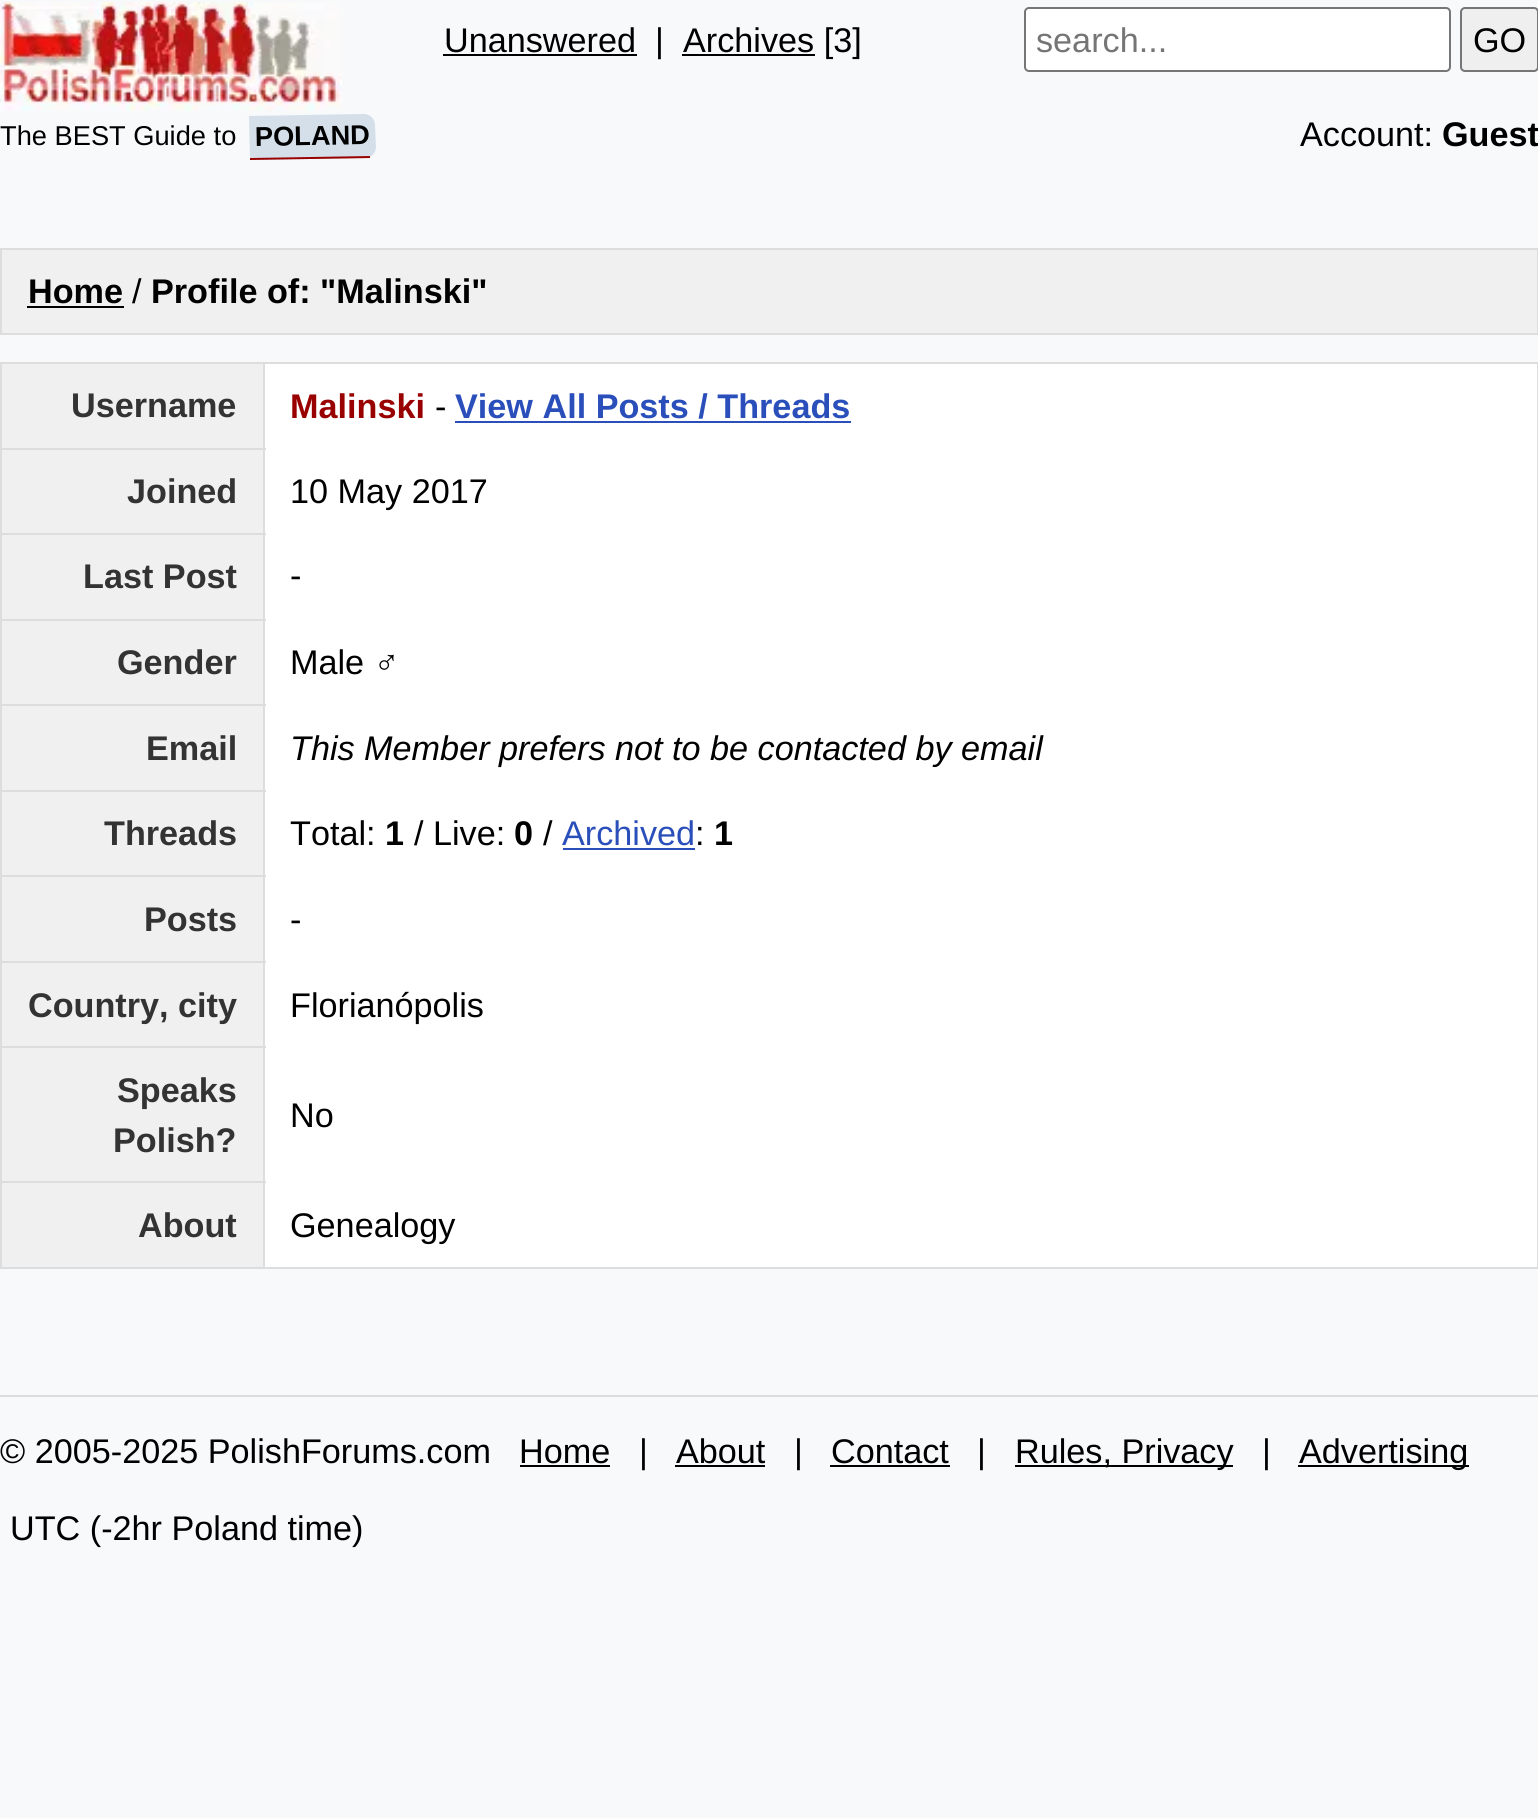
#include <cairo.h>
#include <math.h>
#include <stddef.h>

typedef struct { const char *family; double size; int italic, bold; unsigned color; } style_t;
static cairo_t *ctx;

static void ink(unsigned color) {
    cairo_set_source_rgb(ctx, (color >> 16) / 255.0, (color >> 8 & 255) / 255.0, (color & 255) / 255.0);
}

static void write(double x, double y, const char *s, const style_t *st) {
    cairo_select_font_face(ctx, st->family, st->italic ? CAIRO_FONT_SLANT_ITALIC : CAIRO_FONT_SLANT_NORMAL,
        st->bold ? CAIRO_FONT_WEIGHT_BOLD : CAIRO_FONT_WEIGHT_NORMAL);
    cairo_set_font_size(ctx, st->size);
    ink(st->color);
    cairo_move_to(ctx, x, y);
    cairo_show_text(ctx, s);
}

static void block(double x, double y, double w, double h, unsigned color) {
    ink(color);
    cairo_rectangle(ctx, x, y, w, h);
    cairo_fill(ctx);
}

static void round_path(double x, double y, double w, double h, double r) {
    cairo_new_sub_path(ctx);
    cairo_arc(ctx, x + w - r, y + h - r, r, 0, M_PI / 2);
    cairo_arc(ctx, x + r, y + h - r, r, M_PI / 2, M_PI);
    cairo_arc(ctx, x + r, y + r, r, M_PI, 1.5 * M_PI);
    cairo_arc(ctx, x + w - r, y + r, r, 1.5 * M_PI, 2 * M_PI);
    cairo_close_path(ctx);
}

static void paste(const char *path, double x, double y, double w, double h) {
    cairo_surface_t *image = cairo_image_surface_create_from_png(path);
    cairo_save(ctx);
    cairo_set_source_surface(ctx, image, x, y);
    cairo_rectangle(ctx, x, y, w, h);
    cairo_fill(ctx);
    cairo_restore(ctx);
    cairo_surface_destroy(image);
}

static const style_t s1 = {"Liberation Sans", 27.25, 0, 0, 0x000000};
static const style_t s2 = {"Liberation Sans", 27.25, 0, 1, 0x000000};
static const style_t s3 = {"Liberation Sans", 34.2, 0, 0, 0x000000};
static const style_t s4 = {"Liberation Sans", 34.2, 0, 0, 0x757575};
static const style_t s5 = {"Liberation Sans", 34.2, 0, 1, 0x000000};
static const style_t s6 = {"Liberation Sans", 34.2, 0, 1, 0x333333};
static const style_t s7 = {"Liberation Sans", 34.2, 0, 1, 0x990000};
static const style_t s8 = {"Liberation Sans", 34.2, 0, 1, 0x2a4fba};
static const style_t s9 = {"Liberation Sans", 34.2, 1, 0, 0x000000};
static const style_t s10 = {"Liberation Sans", 34.2, 0, 0, 0x2a4fba};

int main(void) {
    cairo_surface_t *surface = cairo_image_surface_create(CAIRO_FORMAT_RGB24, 1538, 1818);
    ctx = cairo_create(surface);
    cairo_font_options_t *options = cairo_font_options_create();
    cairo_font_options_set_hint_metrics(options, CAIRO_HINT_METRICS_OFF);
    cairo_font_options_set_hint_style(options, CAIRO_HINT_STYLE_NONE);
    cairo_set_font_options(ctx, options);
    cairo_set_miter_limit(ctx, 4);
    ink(0xf7f9fb);
    cairo_paint(ctx);
    paste("pic1.png", 0, 2, 342, 109);
    write(0, 145, "The BEST Guide to", &s1);
    ink(0xd4dfea);
    cairo_new_path(ctx);
    cairo_move_to(ctx, 249, 116);
    cairo_line_to(ctx, 364, 114);
    cairo_curve_to(ctx, 370, 114, 375, 119, 375, 125);
    cairo_line_to(ctx, 376, 147);
    cairo_curve_to(ctx, 376, 153, 371, 158, 365, 158);
    cairo_line_to(ctx, 250, 160);
    cairo_close_path(ctx);
    cairo_fill(ctx);
    ink(0x990000);
    cairo_new_path(ctx);
    cairo_move_to(ctx, 250, 158);
    cairo_line_to(ctx, 370, 156);
    cairo_line_to(ctx, 370, 158);
    cairo_line_to(ctx, 250, 160);
    cairo_close_path(ctx);
    cairo_fill(ctx);
    cairo_save(ctx);
    cairo_translate(ctx, 255, 146);
    cairo_rotate(ctx, -1 * M_PI / 180);
    write(0, 0, "POLAND", &s2);
    cairo_restore(ctx);
    write(444, 52, "Unanswered", &s3);
    block(443, 54, 194, 2, 0x000000);
    write(655, 52, "|", &s3);
    block(682, 54, 133, 2, 0x000000);
    write(683, 52, "Archives [3]", &s3);
    ink(0xffffff);
    round_path(1025, 8, 425, 63, 4);
    cairo_fill_preserve(ctx);
    ink(0x767676);
    cairo_stroke(ctx);
    write(1036, 52, "search...", &s4);
    ink(0xefefef);
    round_path(1461, 8, 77, 63, 4);
    cairo_fill_preserve(ctx);
    ink(0x767676);
    cairo_stroke(ctx);
    write(1473, 52, "GO", &s3);
    write(1300, 146, "Account:", &s3);
    write(1442, 146, "Guest", &s5);
    block(0, 248, 1538, 2, 0xdddddd);
    block(1537, 248, 1, 87, 0xdddddd);
    block(0, 333, 1538, 2, 0xdddddd);
    block(0, 248, 2, 87, 0xdddddd);
    block(2, 250, 1535, 83, 0xf0f0f0);
    write(28, 303, "Home", &s5);
    block(27, 306, 97, 2, 0x000000);
    write(132, 303, "/", &s3);
    write(151, 303, "Profile of: \"Malinski\"", &s5);
    block(265, 364, 1272, 903, 0xffffff);
    block(0, 362, 1538, 2, 0xdddddd);
    block(1537, 362, 1, 907, 0xdddddd);
    block(0, 1267, 1538, 2, 0xdddddd);
    block(0, 362, 2, 907, 0xdddddd);
    block(2, 364, 261, 84, 0xf0f0f0);
    write(71, 417, "Username", &s6);
    write(290, 418, "Malinski", &s7);
    write(435, 418, "-", &s3);
    write(455, 418, "View All Posts / Threads", &s8);
    block(455, 421, 396, 2, 0x2a4fba);
    block(2, 450, 261, 83, 0xf0f0f0);
    block(0, 448, 266, 2, 0xdddddd);
    block(0, 533, 266, 2, 0xdddddd);
    block(0, 619, 266, 2, 0xdddddd);
    block(2, 621, 261, 169, 0xf0f0f0);
    block(0, 704, 266, 2, 0xdddddd);
    block(0, 790, 266, 2, 0xdddddd);
    block(2, 792, 261, 169, 0xf0f0f0);
    block(0, 875, 266, 2, 0xdddddd);
    block(0, 961, 266, 2, 0xdddddd);
    block(2, 963, 261, 304, 0xf0f0f0);
    block(0, 1046, 266, 2, 0xdddddd);
    block(0, 1181, 266, 2, 0xdddddd);
    block(263, 1181, 2, 88, 0xdddddd);
    block(263, 1046, 2, 138, 0xdddddd);
    block(263, 961, 2, 88, 0xdddddd);
    block(263, 875, 2, 88, 0xdddddd);
    block(263, 790, 2, 88, 0xdddddd);
    block(263, 704, 2, 88, 0xdddddd);
    block(263, 619, 2, 88, 0xdddddd);
    block(263, 533, 2, 88, 0xdddddd);
    block(263, 362, 2, 174, 0xdddddd);
    write(127, 503, "Joined", &s6);
    write(290, 503, "10 May 2017", &s3);
    block(2, 535, 261, 84, 0xf0f0f0);
    write(83, 588, "Last Post", &s6);
    write(290, 587, "-", &s3);
    write(117, 674, "Gender", &s6);
    write(290, 674, "Male ♂", &s3);
    write(146, 760, "Email", &s6);
    write(290, 760, "This Member prefers not to be contacted by email", &s9);
    write(104, 845, "Threads", &s6);
    write(290, 845, "Total:", &s3);
    write(385, 845, "1", &s5);
    write(414, 845, "/ Live:", &s3);
    write(514, 845, "0", &s5);
    write(543, 845, "/", &s3);
    write(562, 845, "Archived", &s10);
    block(563, 848, 132, 2, 0x2a4fba);
    write(695, 845, ":", &s3);
    write(714, 845, "1", &s5);
    write(144, 931, "Posts", &s6);
    write(290, 931, "-", &s3);
    write(28, 1017, "Country, city", &s6);
    write(290, 1017, "Florianópolis", &s3);
    write(117, 1102, "Speaks", &s6);
    write(113, 1152, "Polish?", &s6);
    write(290, 1127, "No", &s3);
    write(138, 1237, "About", &s6);
    write(290, 1237, "Genealogy", &s3);
    block(0, 1395, 1538, 2, 0xdddddd);
    write(0, 1463, "© 2005-2025 PolishForums.com", &s3);
    write(519, 1463, "Home", &s3);
    block(520, 1465, 90, 2, 0x000000);
    write(639, 1463, "|", &s3);
    write(676, 1463, "About", &s3);
    block(675, 1465, 90, 2, 0x000000);
    write(794, 1463, "|", &s3);
    write(831, 1463, "Contact", &s3);
    block(830, 1465, 120, 2, 0x000000);
    write(977, 1463, "|", &s3);
    block(1015, 1465, 218, 2, 0x000000);
    write(1015, 1463, "Rules, Privacy", &s3);
    write(1262, 1463, "|", &s3);
    block(1298, 1465, 171, 2, 0x000000);
    write(1299, 1463, "Advertising", &s3);
    write(10, 1540, "UTC (-2hr Poland time)", &s3);
    cairo_surface_write_to_png(surface, "screenshot.png");
    cairo_font_options_destroy(options);
    cairo_destroy(ctx);
    cairo_surface_destroy(surface);
    return 0;
}
